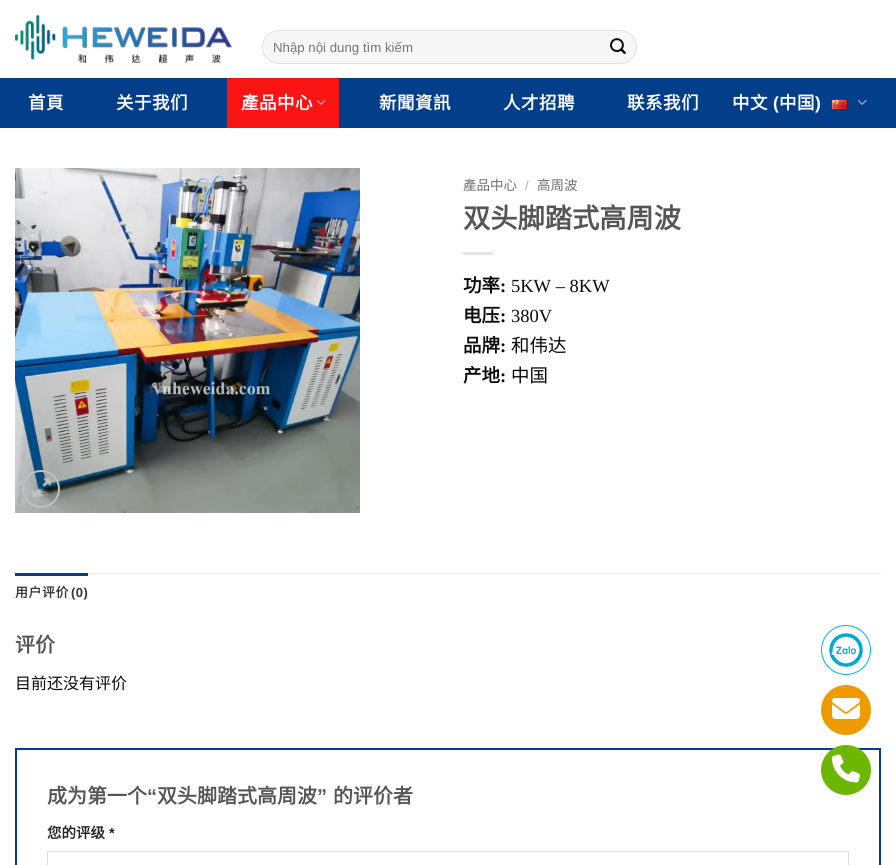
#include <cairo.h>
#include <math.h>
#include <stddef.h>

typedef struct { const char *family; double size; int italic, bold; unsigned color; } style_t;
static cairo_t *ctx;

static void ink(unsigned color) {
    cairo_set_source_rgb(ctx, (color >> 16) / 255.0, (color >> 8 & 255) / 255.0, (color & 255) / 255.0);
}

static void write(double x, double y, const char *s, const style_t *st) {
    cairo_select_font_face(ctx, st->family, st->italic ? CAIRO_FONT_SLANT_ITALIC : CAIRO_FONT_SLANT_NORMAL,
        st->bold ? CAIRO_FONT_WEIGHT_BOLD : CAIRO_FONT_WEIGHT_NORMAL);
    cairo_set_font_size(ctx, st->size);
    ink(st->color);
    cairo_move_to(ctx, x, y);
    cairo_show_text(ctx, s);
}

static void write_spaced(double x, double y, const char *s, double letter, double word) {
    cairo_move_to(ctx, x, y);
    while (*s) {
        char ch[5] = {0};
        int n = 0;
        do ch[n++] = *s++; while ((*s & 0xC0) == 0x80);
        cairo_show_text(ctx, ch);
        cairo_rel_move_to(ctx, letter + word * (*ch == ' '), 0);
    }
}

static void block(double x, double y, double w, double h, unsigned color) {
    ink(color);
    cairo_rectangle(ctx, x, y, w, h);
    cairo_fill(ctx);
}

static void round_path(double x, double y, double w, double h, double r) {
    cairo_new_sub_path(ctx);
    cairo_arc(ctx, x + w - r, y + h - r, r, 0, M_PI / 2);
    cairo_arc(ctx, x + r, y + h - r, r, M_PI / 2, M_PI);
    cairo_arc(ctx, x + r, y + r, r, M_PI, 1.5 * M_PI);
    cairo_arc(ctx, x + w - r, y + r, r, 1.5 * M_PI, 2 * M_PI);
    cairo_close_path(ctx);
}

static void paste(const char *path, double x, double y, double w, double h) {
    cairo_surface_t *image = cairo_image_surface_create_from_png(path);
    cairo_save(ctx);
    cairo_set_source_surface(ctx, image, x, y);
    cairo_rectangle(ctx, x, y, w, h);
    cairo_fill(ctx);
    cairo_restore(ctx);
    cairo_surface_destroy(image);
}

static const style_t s1 = {"Liberation Sans", 13.25, 0, 0, 0x757575};
static const style_t s2 = {"Noto Sans CJK SC", 13.5, 0, 0, 0x6e6e6e};
static const style_t s3 = {"Liberation Sans", 13.5, 0, 0, 0xb2b2b2};
static const style_t s4 = {"Noto Sans CJK SC", 27.25, 0, 1, 0x555555};
static const style_t s5 = {"Noto Sans CJK SC", 18.5, 0, 1, 0x0a0a0a};
static const style_t s6 = {"Liberation Serif", 18.5, 0, 1, 0x0a0a0a};
static const style_t s7 = {"Liberation Serif", 18.5, 0, 0, 0x0a0a0a};
static const style_t s8 = {"Noto Sans CJK SC", 18.5, 0, 0, 0x0a0a0a};
static const style_t s9 = {"Noto Sans CJK SC", 20, 0, 1, 0x555555};
static const style_t s10 = {"Noto Sans CJK SC", 16, 0, 0, 0x0a0a0a};
static const style_t s11 = {"Liberation Sans", 20, 0, 1, 0x555555};
static const style_t s12 = {"Noto Sans CJK SC", 14.5, 0, 1, 0x222222};
static const style_t s13 = {"Liberation Sans", 14.5, 0, 1, 0x222222};

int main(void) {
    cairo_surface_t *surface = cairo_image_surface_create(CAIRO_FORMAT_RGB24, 896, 865);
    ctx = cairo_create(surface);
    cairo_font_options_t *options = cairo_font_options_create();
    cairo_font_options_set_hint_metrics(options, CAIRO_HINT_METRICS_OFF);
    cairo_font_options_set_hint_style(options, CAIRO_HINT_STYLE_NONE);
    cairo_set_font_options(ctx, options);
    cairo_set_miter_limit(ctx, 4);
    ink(0xffffff);
    cairo_paint(ctx);
    paste("pic1.png", 15, 15, 217, 48);
    ink(0xf7f7f7);
    round_path(262, 30, 375, 34, 17);
    cairo_fill(ctx);
    round_path(262.5, 30.5, 374, 33, 16.5);
    cairo_set_source_rgba(ctx, 0, 0, 0, 0.09);
    cairo_set_line_width(ctx, 1);
    cairo_stroke(ctx);
    write(273, 52, "Nhập nội dung tìm kiếm", &s1);
    paste("pic2.png", 610, 38, 16, 16);
    block(0, 78, 896, 50, 0x033e8a);
    block(15, 78, 866, 1, 0x04397d);
    cairo_select_font_face(ctx, "Noto Sans CJK SC", CAIRO_FONT_SLANT_NORMAL, CAIRO_FONT_WEIGHT_BOLD);
    cairo_set_font_size(ctx, 17.5);
    ink(0xffffff);
    write_spaced(28, 109, "首頁", 0.5, 0);
    write_spaced(116, 109, "关于我们", 0.5, 0);
    block(227, 79, 112, 49, 0xfa1414);
    block(227, 78, 112, 1, 0xe21313);
    ink(0xffffff);
    write_spaced(241, 109, "產品中心", 0.5, 0);
    paste("pic3.png", 316, 99, 10, 6);
    write_spaced(379, 109, "新聞資訊", 0.5, 0);
    write_spaced(503, 109, "人才招聘", 0.5, 0);
    write_spaced(627, 109, "联系我们", 0.5, 0);
    write_spaced(732, 109, "中文", 0.5, 0);
    cairo_select_font_face(ctx, "Liberation Sans", CAIRO_FONT_SLANT_NORMAL, CAIRO_FONT_WEIGHT_BOLD);
    write_spaced(773, 109, "(", 0.5, 0);
    cairo_select_font_face(ctx, "Noto Sans CJK SC", CAIRO_FONT_SLANT_NORMAL, CAIRO_FONT_WEIGHT_BOLD);
    write_spaced(779, 109, "中国", 0.5, 0);
    cairo_select_font_face(ctx, "Liberation Sans", CAIRO_FONT_SLANT_NORMAL, CAIRO_FONT_WEIGHT_BOLD);
    write_spaced(815, 109, ")", 0.5, 0);
    paste("pic4.png", 831, 99, 16, 11);
    paste("pic5.png", 857, 99, 10, 6);
    paste("pic6.png", 15, 168, 345, 345);
    cairo_arc(ctx, 41, 489, 18, 0, 2 * M_PI);
    ink(0xc0c0c0);
    cairo_set_line_width(ctx, 2);
    cairo_stroke(ctx);
    paste("pic7.png", 32, 478, 19, 19);
    write(463, 190, "產品中心", &s2);
    write(525, 190, "/", &s3);
    write(537, 190, "高周波", &s2);
    write(463, 228, "双头脚踏式高周波", &s4);
    block(463, 252, 30, 3, 0xe6e6e6);
    write(463, 292, "功率", &s5);
    write(500, 292, ":", &s6);
    write(511, 292, "5KW – 8KW", &s7);
    write(463, 322, "电压", &s5);
    write(500, 322, ":", &s6);
    write(511, 322, "380V", &s7);
    write(463, 352, "品牌", &s5);
    write(500, 352, ":", &s6);
    write(511, 352, "和伟达", &s8);
    write(463, 382, "产地", &s5);
    write(500, 382, ":", &s6);
    write(511, 382, "中国", &s8);
    block(88, 573, 793, 1, 0xececec);
    block(15, 573, 73, 3, 0x033e8a);
    cairo_select_font_face(ctx, "Noto Sans CJK SC", CAIRO_FONT_SLANT_NORMAL, CAIRO_FONT_WEIGHT_BOLD);
    cairo_set_font_size(ctx, 13);
    ink(0x363636);
    write_spaced(15, 597, "用户评价", 0.5, 0);
    cairo_select_font_face(ctx, "Liberation Sans", CAIRO_FONT_SLANT_NORMAL, CAIRO_FONT_WEIGHT_BOLD);
    write_spaced(71, 597, "(0)", 0.5, 0);
    write(15, 652, "评价", &s9);
    write(15, 689, "目前还没有评价", &s10);
    cairo_rectangle(ctx, 16, 749, 864, 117);
    ink(0x033e8a);
    cairo_stroke(ctx);
    write(47, 803, "成为第一个", &s9);
    write(147, 803, "“", &s11);
    write(157, 803, "双头脚踏式高周波", &s9);
    write(317, 803, "”", &s11);
    write(333, 803, "的评价者", &s9);
    write(47, 838, "您的评级", &s12);
    write(109, 838, "*", &s13);
    cairo_rectangle(ctx, 47.5, 851.5, 801, 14);
    ink(0xdddddd);
    cairo_set_line_width(ctx, 1);
    cairo_stroke(ctx);
    paste("pic8.png", 829, 633, 34, 34);
    cairo_arc(ctx, 846, 650, 24.5, 0, 2 * M_PI);
    ink(0x00afee);
    cairo_stroke(ctx);
    ink(0xee9b00);
    cairo_arc(ctx, 846, 710, 25, 0, 2 * M_PI);
    cairo_fill(ctx);
    paste("pic9.png", 832, 698, 28, 21);
    ink(0x6db703);
    cairo_arc(ctx, 846, 770, 25, 0, 2 * M_PI);
    cairo_fill(ctx);
    paste("pic10.png", 832, 754, 28, 29);
    cairo_surface_write_to_png(surface, "screenshot.png");
    cairo_font_options_destroy(options);
    cairo_destroy(ctx);
    cairo_surface_destroy(surface);
    return 0;
}
